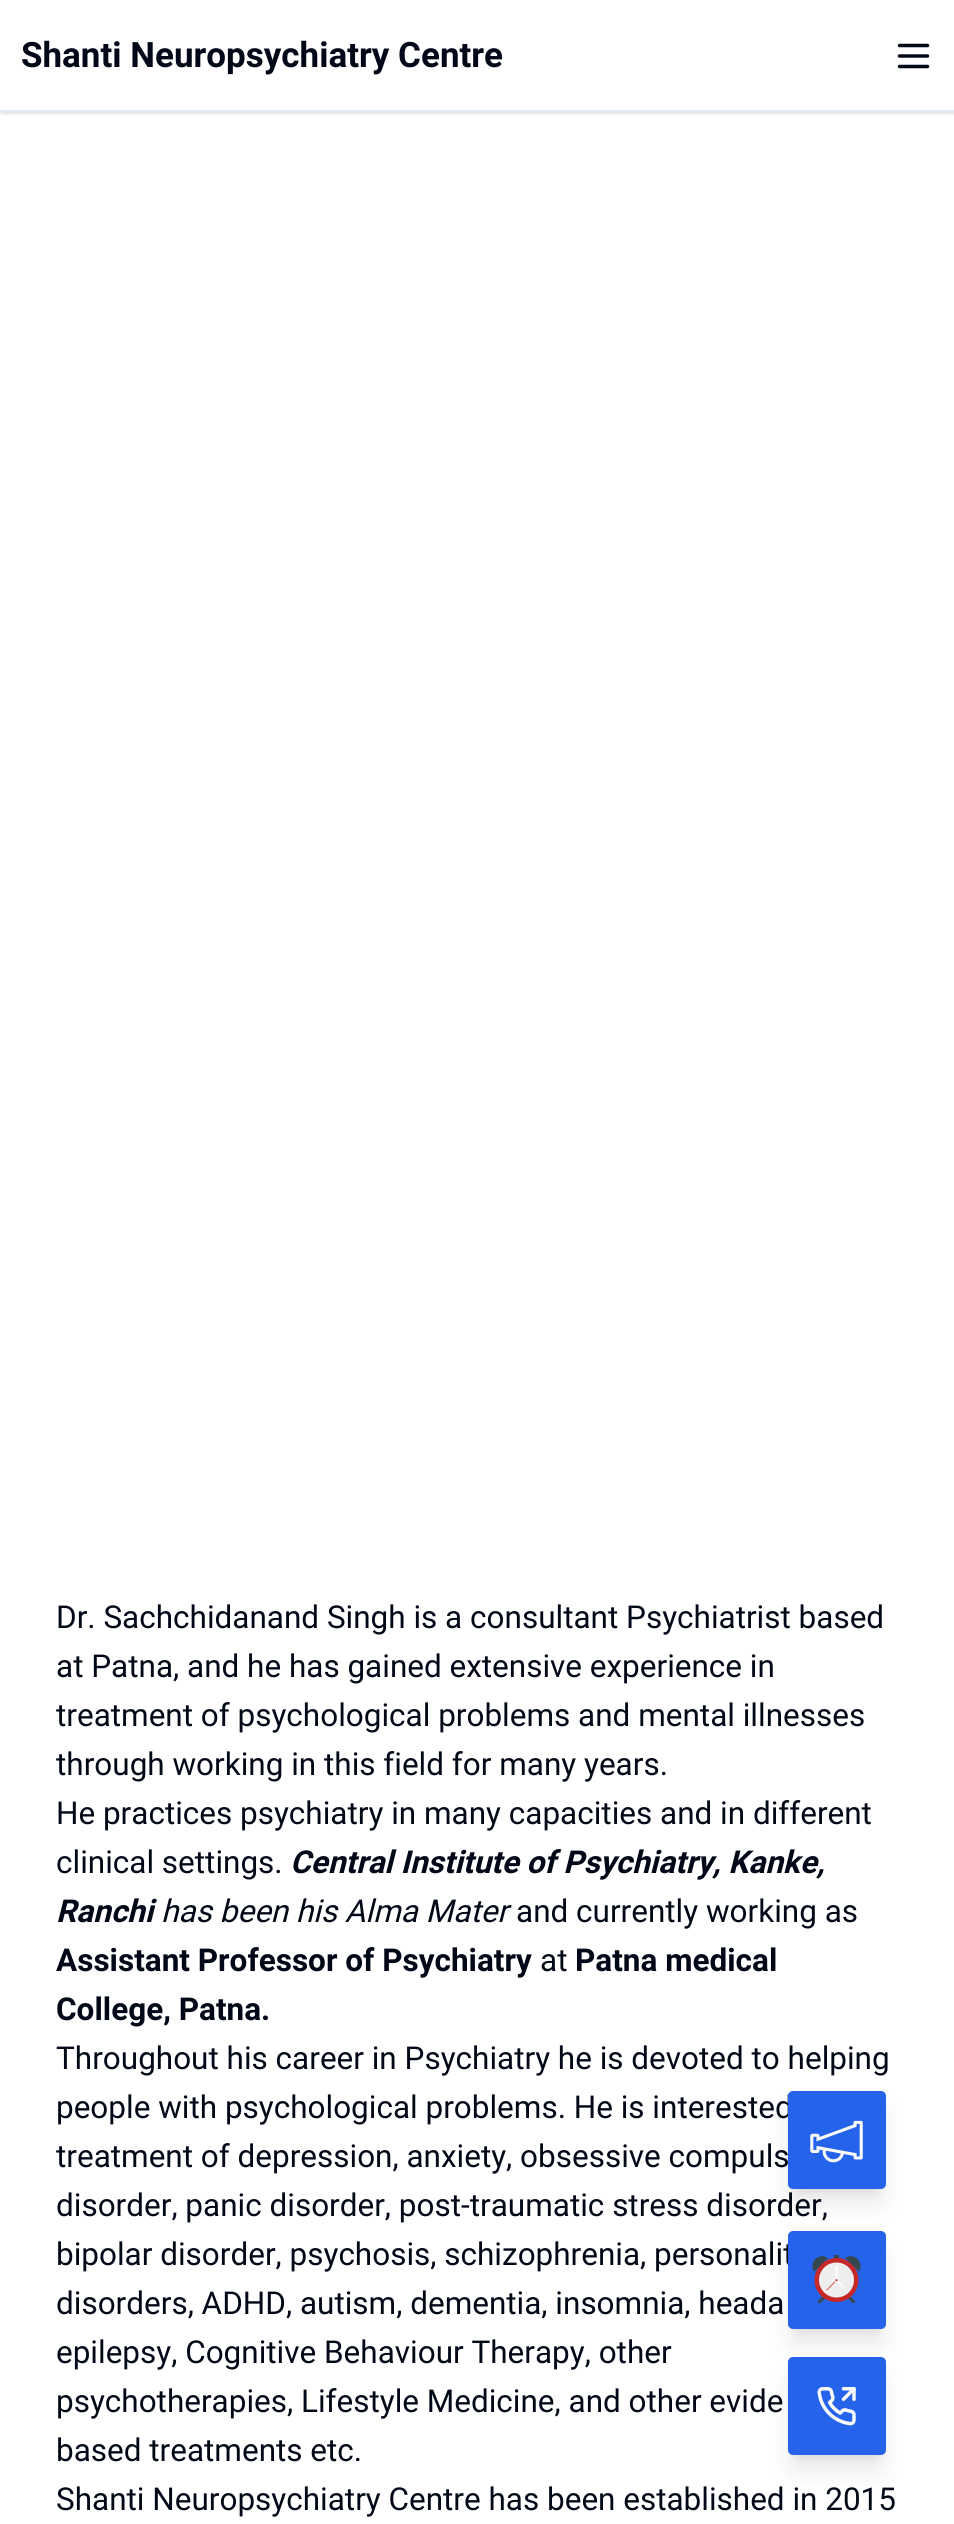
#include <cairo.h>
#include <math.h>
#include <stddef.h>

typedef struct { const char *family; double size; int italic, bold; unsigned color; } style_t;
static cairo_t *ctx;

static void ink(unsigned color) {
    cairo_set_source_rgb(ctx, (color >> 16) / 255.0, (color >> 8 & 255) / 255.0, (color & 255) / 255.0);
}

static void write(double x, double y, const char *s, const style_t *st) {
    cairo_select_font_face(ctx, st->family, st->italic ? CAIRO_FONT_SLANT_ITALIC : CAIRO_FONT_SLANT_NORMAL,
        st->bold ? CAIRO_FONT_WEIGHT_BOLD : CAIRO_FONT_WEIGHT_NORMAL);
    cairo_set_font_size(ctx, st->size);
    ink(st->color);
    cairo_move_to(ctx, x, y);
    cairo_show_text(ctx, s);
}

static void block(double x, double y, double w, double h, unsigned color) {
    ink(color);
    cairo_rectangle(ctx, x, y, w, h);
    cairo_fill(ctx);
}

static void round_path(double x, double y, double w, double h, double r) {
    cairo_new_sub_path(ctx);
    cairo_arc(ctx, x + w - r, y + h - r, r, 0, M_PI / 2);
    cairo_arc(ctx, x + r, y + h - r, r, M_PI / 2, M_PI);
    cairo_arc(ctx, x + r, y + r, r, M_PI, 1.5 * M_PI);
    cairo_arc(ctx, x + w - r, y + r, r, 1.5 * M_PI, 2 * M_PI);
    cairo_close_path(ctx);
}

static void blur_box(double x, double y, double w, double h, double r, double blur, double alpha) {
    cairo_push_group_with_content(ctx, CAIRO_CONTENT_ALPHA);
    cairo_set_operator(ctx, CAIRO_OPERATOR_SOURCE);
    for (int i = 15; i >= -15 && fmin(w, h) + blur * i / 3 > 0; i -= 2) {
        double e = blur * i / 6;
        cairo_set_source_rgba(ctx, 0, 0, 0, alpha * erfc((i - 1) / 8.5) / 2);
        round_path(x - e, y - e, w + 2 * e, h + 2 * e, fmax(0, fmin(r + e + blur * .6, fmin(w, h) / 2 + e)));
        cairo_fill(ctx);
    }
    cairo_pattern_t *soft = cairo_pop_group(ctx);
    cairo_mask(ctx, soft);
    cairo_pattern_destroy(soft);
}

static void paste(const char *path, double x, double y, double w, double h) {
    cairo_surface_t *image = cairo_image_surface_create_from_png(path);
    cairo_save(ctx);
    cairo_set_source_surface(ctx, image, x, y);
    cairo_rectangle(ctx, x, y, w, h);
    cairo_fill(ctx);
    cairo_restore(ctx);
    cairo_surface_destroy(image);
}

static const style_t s1 = {"Roboto", 35, 0, 1, 0x020817};
static const style_t s2 = {"Roboto", 31.5, 0, 0, 0x020817};
static const style_t s3 = {"Roboto", 31.5, 1, 1, 0x020817};
static const style_t s4 = {"Roboto", 31.5, 1, 0, 0x020817};
static const style_t s5 = {"Roboto", 31.5, 0, 1, 0x020817};

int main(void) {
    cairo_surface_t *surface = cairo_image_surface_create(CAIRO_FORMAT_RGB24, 954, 2524);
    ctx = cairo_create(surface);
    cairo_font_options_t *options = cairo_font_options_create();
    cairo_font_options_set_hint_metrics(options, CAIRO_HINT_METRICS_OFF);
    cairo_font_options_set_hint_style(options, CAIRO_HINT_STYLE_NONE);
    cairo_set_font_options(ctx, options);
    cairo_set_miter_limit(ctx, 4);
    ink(0xffffff);
    cairo_paint(ctx);
    cairo_save(ctx);
    cairo_rectangle(ctx, 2, 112, 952, 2);
    cairo_clip(ctx);
    ink(0x000000);
    blur_box(2, 4, 952, 108, 0, 2, 0.1);
    cairo_restore(ctx);
    cairo_save(ctx);
    cairo_rectangle(ctx, 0, 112, 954, 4);
    cairo_clip(ctx);
    ink(0x000000);
    blur_box(0, 2, 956, 112, 0, 2.5, 0.1);
    cairo_restore(ctx);
    block(0, 110, 954, 2, 0xe2e8f0);
    write(21, 67, "Shanti Neuropsychiatry Centre", &s1);
    cairo_new_path(ctx);
    cairo_move_to(ctx, 899.5, 56);
    cairo_line_to(ctx, 927.5, 56);
    cairo_move_to(ctx, 899.5, 45.5);
    cairo_line_to(ctx, 927.5, 45.5);
    cairo_move_to(ctx, 899.5, 66.5);
    cairo_line_to(ctx, 927.5, 66.5);
    cairo_set_line_width(ctx, 3.5);
    cairo_set_line_cap(ctx, CAIRO_LINE_CAP_ROUND);
    cairo_set_line_join(ctx, CAIRO_LINE_JOIN_ROUND);
    cairo_stroke(ctx);
    write(56, 1628, "Dr. Sachchidanand Singh is a consultant Psychiatrist based", &s2);
    write(56, 1677, "at Patna, and he has gained extensive experience in", &s2);
    write(56, 1726, "treatment of psychological problems and mental illnesses", &s2);
    write(56, 1775, "through working in this field for many years.", &s2);
    write(56, 1824, "He practices psychiatry in many capacities and in different", &s2);
    write(56, 1873, "clinical settings.", &s2);
    write(290, 1873, "Central Institute of Psychiatry, Kanke,", &s3);
    write(56, 1922, "Ranchi", &s3);
    write(161, 1922, "has been his Alma Mater", &s4);
    write(516, 1922, "and currently working as", &s2);
    write(56, 1971, "Assistant Professor of Psychiatry", &s5);
    write(540, 1971, "at", &s2);
    write(575, 1971, "Patna medical", &s5);
    write(56, 2020, "College, Patna.", &s5);
    write(56, 2069, "Throughout his career in Psychiatry he is devoted to helping", &s2);
    write(56, 2118, "people with psychological problems. He is interested", &s2);
    write(56, 2167, "treatment of depression, anxiety, obsessive compuls", &s2);
    write(56, 2216, "disorder, panic disorder, post-traumatic stress disorder,", &s2);
    write(56, 2265, "bipolar disorder, psychosis, schizophrenia, personalit", &s2);
    write(56, 2314, "disorders, ADHD, autism, dementia, insomnia, heada", &s2);
    write(56, 2363, "epilepsy, Cognitive Behaviour Therapy, other", &s2);
    write(56, 2412, "psychotherapies, Lifestyle Medicine, and other evide", &s2);
    write(56, 2461, "based treatments etc.", &s2);
    write(56, 2510, "Shanti Neuropsychiatry Centre has been established in 2015", &s2);
    ink(0x000000);
    blur_box(795, 2105, 84, 84, 0, 5, 0.1);
    blur_box(793, 2114, 87, 88, 0, 13, 0.1);
    ink(0x2563eb);
    round_path(788, 2091, 98, 98, 5);
    cairo_fill(ctx);
    paste("pic1.png", 810, 2120, 53, 43);
    ink(0x000000);
    blur_box(795, 2245, 84, 84, 0, 5, 0.1);
    blur_box(795, 2371, 84, 84, 0, 5, 0.1);
    blur_box(793, 2380, 87, 88, 0, 13, 0.1);
    ink(0x2563eb);
    round_path(788, 2357, 98, 98, 5);
    cairo_fill(ctx);
    ink(0x000000);
    blur_box(793, 2254, 87, 88, 0, 13, 0.1);
    ink(0x2563eb);
    round_path(788, 2231, 98, 98, 5);
    cairo_fill(ctx);
    paste("pic2.png", 812, 2255, 49, 49);
    paste("pic3.png", 817, 2387, 39, 39);
    cairo_surface_write_to_png(surface, "screenshot.png");
    cairo_font_options_destroy(options);
    cairo_destroy(ctx);
    cairo_surface_destroy(surface);
    return 0;
}
